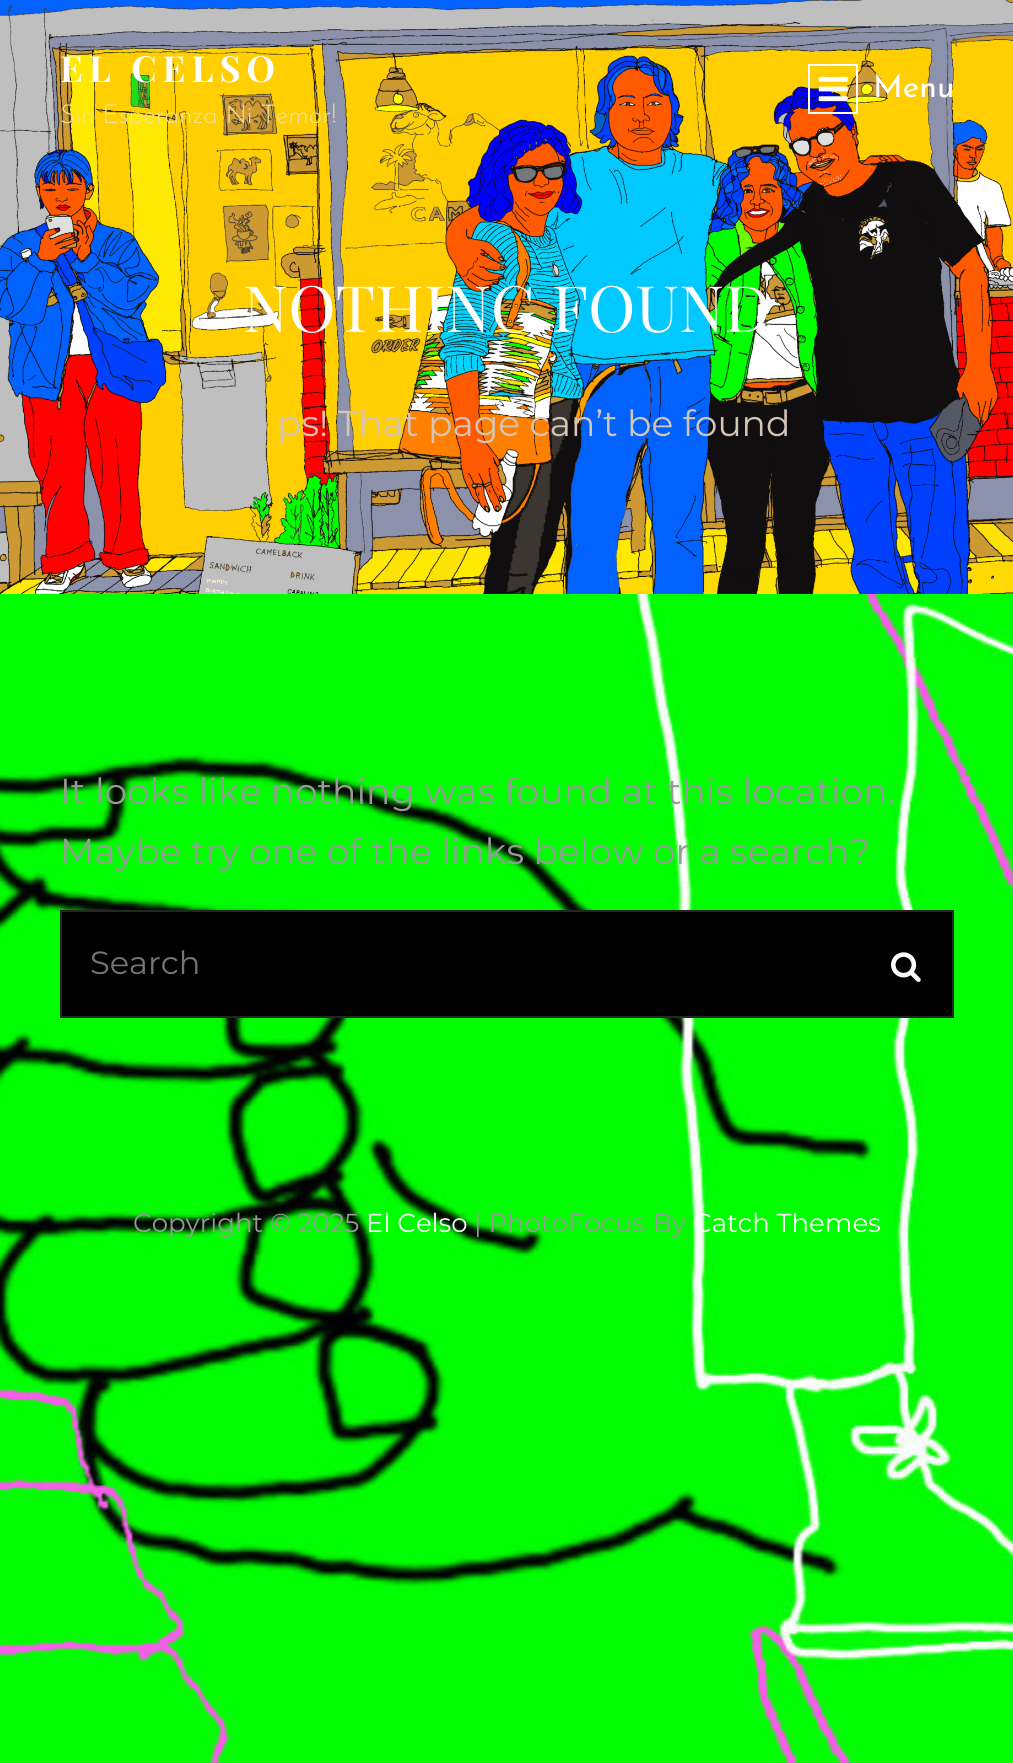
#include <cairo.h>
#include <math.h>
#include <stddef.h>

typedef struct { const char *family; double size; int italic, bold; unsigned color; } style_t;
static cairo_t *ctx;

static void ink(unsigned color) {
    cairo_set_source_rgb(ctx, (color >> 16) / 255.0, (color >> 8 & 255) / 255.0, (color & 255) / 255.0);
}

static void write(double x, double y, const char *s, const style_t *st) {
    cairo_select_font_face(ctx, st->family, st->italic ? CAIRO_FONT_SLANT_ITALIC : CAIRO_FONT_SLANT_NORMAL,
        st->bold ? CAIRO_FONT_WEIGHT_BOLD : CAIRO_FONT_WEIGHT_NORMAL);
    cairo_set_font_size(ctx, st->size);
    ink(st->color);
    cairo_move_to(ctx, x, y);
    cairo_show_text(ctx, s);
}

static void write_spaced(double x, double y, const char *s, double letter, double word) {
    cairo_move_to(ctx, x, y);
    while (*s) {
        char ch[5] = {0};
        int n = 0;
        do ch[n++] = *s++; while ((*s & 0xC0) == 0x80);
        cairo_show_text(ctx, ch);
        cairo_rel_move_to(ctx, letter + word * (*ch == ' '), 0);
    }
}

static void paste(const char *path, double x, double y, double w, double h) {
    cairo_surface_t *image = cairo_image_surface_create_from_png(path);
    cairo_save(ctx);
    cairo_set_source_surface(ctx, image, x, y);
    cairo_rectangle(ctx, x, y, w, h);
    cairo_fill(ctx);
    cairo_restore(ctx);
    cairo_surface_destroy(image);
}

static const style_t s1 = {"Josefin Sans Light", 26, 0, 0, 0xf2e3a0};
static const style_t s2 = {"Josefin Sans", 32, 0, 0, 0xffffff};
static const style_t s3 = {"Playfair Display", 64, 0, 0, 0xffffff};
static const style_t s4 = {"Montserrat", 36, 0, 0, 0xd3c5b7};
static const style_t s5 = {"Montserrat", 36, 0, 0, 0x999999};
static const style_t s6 = {"Montserrat", 32, 0, 0, 0x757575};
static const style_t s7 = {"Montserrat", 26, 0, 0, 0x999999};
static const style_t s8 = {"Montserrat", 26, 0, 0, 0xffffff};

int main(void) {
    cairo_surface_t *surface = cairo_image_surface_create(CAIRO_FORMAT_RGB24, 1013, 1763);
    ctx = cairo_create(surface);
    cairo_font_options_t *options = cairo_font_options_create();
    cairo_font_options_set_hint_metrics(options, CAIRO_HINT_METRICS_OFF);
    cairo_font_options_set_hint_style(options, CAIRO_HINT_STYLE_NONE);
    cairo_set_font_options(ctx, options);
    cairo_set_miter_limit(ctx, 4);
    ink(0xffffff);
    cairo_paint(ctx);
    paste("pic1.png", 0, 594, 1013, 1169);
    paste("pic3.png", 0, 0, 1013, 594);
    cairo_select_font_face(ctx, "Playfair Display", CAIRO_FONT_SLANT_NORMAL, CAIRO_FONT_WEIGHT_BOLD);
    cairo_set_font_size(ctx, 36);
    ink(0xffffff);
    write_spaced(60, 82, "EL CELSO", 6, 0);
    write(60, 123, "Sin Esperanza Ni Temor!", &s1);
    cairo_rectangle(ctx, 809, 65, 48, 48);
    ink(0xffffff);
    cairo_stroke(ctx);
    paste("pic2.png", 818, 76, 30, 26);
    write(873, 97, "Menu", &s2);
    write(243, 332, "NOTHING FOUND", &s3);
    write(277, 436, "ps! That page can’t be found", &s4);
    write(60, 804, "It looks like nothing was found at this location.", &s5);
    write(60, 864, "Maybe try one of the links below or a search?", &s5);
    ink(0x000000);
    cairo_rectangle(ctx, 61, 911, 892, 106);
    cairo_fill_preserve(ctx);
    ink(0x252525);
    cairo_stroke(ctx);
    write(90, 974, "Search", &s6);
    paste("pic4.png", 891, 952, 30, 30);
    write(133, 1232, "Copyright © 2025", &s7);
    write(366, 1232, "El Celso", &s8);
    write(474, 1232, "| PhotoFocus By", &s7);
    write(693, 1232, "Catch Themes", &s8);
    cairo_surface_write_to_png(surface, "screenshot.png");
    cairo_font_options_destroy(options);
    cairo_destroy(ctx);
    cairo_surface_destroy(surface);
    return 0;
}
